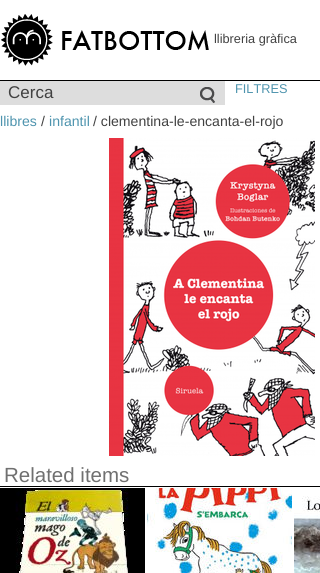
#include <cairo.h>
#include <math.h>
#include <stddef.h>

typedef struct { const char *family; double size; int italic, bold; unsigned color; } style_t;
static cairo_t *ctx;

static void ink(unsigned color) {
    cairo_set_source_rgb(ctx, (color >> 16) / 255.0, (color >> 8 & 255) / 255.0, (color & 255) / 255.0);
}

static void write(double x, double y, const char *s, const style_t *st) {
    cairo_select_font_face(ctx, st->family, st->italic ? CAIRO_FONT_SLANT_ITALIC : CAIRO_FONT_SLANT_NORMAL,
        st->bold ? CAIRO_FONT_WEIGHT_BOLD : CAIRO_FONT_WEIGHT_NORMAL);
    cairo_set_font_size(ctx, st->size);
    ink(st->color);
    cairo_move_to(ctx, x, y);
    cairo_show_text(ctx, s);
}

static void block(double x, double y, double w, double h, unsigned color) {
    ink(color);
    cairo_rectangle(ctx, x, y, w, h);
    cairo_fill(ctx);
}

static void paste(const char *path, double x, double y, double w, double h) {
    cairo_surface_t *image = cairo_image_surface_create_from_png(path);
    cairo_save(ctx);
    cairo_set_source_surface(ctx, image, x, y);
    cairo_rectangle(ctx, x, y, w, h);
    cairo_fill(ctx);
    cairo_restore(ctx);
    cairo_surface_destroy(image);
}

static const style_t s1 = {"Liberation Sans", 12.75, 0, 0, 0x414141};
static const style_t s2 = {"Liberation Sans", 17, 0, 0, 0x414141};
static const style_t s3 = {"Liberation Sans", 12.75, 0, 0, 0x4e94ae};
static const style_t s4 = {"Liberation Sans", 14.1, 0, 0, 0x4e94ae};
static const style_t s5 = {"Liberation Sans", 14.1, 0, 0, 0x414141};
static const style_t s6 = {"Liberation Sans", 20.5, 0, 0, 0x707070};

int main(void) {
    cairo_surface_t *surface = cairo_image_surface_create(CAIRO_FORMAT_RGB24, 320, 573);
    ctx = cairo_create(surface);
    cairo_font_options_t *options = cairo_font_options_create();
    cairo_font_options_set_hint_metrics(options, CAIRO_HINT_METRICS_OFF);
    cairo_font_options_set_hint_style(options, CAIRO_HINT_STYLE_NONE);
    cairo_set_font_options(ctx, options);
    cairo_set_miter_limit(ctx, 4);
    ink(0xffffff);
    cairo_paint(ctx);
    block(0, 80, 320, 1, 0x000000);
    paste("pic1.png", 1, 14, 208, 52);
    write(214, 43, "llibreria gràfica", &s1);
    block(0, 81, 225, 24, 0xdddddd);
    write(8, 98, "Cerca", &s2);
    paste("pic2.png", 200, 87, 15, 16);
    write(235, 93, "FILTRES", &s3);
    write(0, 126, "llibres", &s4);
    write(41, 126, "/", &s5);
    write(49, 126, "infantil", &s4);
    write(93, 126, "/ clementina-le-encanta-el-rojo", &s5);
    paste("pic3.png", 109, 138, 206, 318);
    block(0, 486, 320, 1, 0x000000);
    write(4, 482, "Related items", &s6);
    paste("pic4.png", 0, 488, 145, 85);
    paste("pic5.png", 147, 488, 145, 85);
    paste("pic6.png", 294, 496, 26, 77);
    cairo_surface_write_to_png(surface, "screenshot.png");
    cairo_font_options_destroy(options);
    cairo_destroy(ctx);
    cairo_surface_destroy(surface);
    return 0;
}
